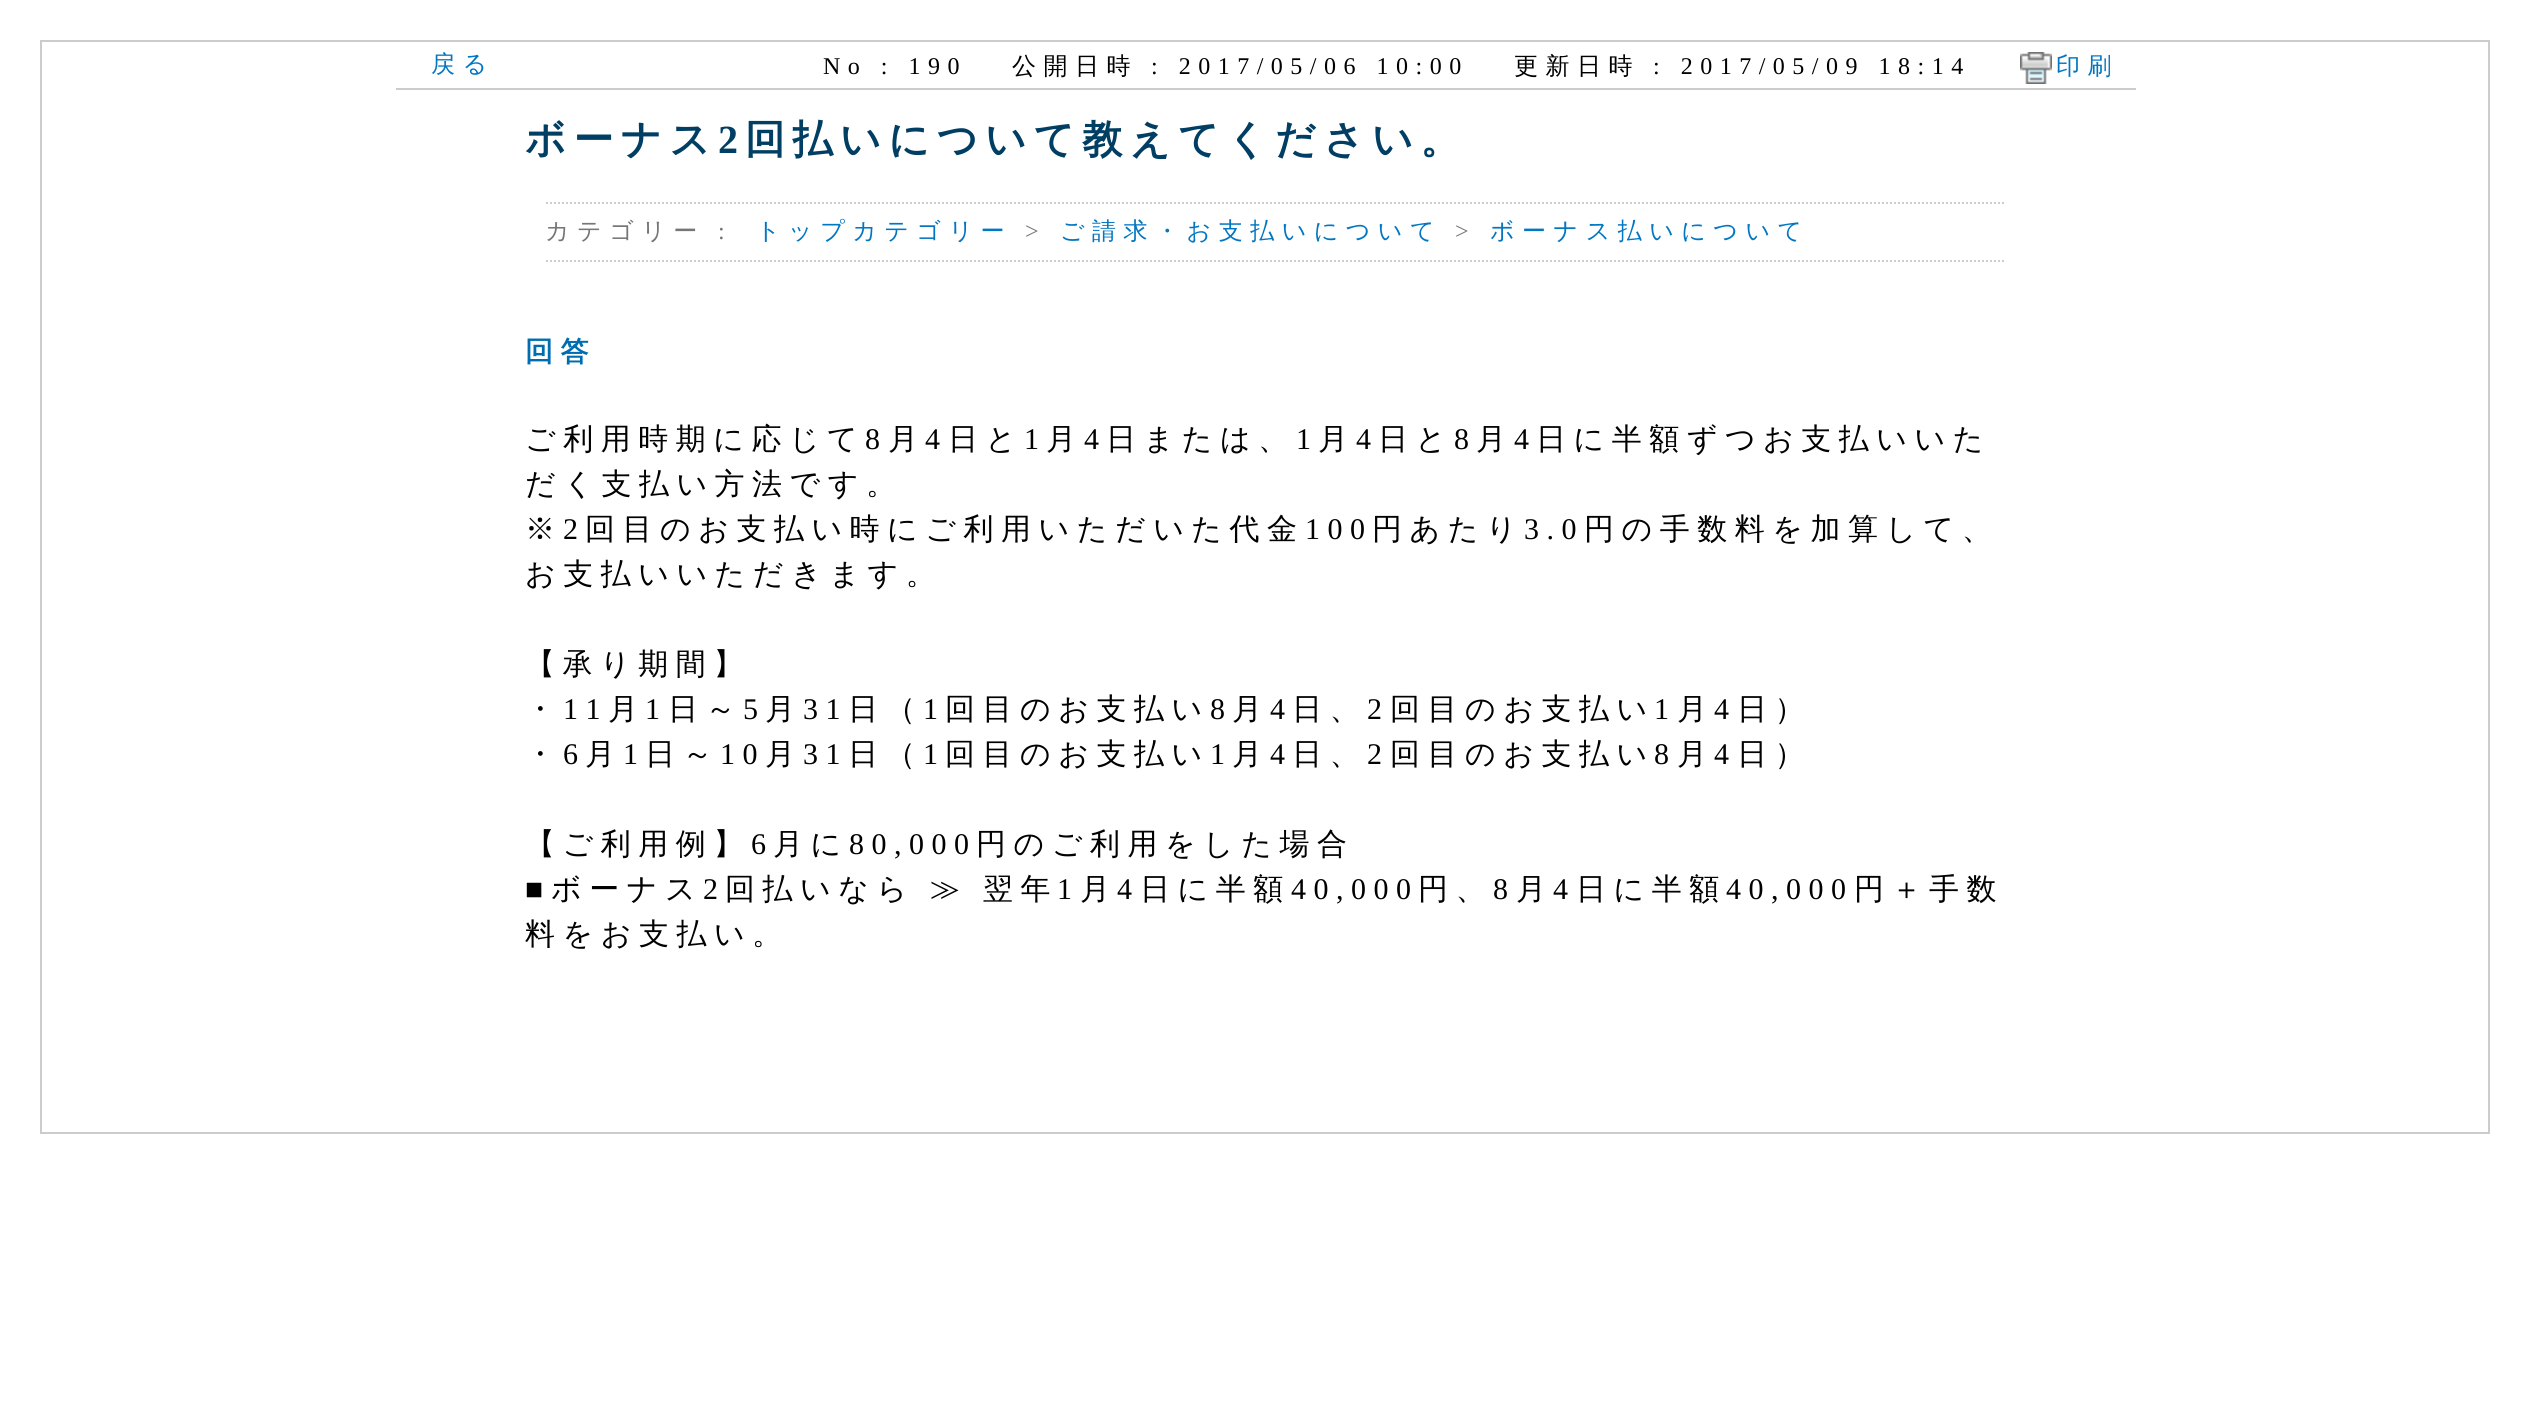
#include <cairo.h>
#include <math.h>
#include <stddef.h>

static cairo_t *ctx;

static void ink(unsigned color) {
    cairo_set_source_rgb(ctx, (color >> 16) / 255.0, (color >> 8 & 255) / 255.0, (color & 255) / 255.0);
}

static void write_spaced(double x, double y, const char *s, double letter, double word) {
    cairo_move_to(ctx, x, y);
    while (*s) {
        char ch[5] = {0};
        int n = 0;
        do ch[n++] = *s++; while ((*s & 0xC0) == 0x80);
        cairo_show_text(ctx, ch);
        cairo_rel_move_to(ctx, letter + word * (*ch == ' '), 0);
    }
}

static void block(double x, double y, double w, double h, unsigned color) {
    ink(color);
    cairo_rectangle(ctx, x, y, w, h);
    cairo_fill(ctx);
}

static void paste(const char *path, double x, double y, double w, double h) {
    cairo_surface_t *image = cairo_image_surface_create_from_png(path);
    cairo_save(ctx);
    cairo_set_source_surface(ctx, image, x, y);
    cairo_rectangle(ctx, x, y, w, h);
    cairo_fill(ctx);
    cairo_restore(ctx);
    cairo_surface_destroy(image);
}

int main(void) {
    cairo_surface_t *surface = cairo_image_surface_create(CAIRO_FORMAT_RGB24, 2529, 1428);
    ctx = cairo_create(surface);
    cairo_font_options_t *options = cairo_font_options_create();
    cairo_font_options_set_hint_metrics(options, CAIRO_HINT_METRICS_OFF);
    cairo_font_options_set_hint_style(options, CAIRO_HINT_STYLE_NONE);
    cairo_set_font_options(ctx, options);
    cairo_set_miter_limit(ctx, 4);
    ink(0xffffff);
    cairo_paint(ctx);
    cairo_rectangle(ctx, 41, 41, 2448, 1092);
    ink(0xcccccc);
    cairo_stroke(ctx);
    block(396, 88, 1740, 2, 0xcccccc);
    cairo_select_font_face(ctx, "WenQuanYi Zen Hei Medium", CAIRO_FONT_SLANT_NORMAL, CAIRO_FONT_WEIGHT_NORMAL);
    cairo_set_font_size(ctx, 24);
    ink(0x0276c1);
    write_spaced(431, 72, "戻る", 7.5, 0);
    cairo_select_font_face(ctx, "Liberation Serif", CAIRO_FONT_SLANT_NORMAL, CAIRO_FONT_WEIGHT_NORMAL);
    ink(0x000000);
    write_spaced(823, 74, "No : 190", 7.5, 0);
    cairo_select_font_face(ctx, "WenQuanYi Zen Hei Medium", CAIRO_FONT_SLANT_NORMAL, CAIRO_FONT_WEIGHT_NORMAL);
    write_spaced(1012, 74, "公開日時", 7.5, 0);
    cairo_select_font_face(ctx, "Liberation Serif", CAIRO_FONT_SLANT_NORMAL, CAIRO_FONT_WEIGHT_NORMAL);
    write_spaced(1151, 74, ": 2017/05/06 10:00", 7.5, 0);
    cairo_select_font_face(ctx, "WenQuanYi Zen Hei Medium", CAIRO_FONT_SLANT_NORMAL, CAIRO_FONT_WEIGHT_NORMAL);
    write_spaced(1514, 74, "更新日時", 7.5, 0);
    cairo_select_font_face(ctx, "Liberation Serif", CAIRO_FONT_SLANT_NORMAL, CAIRO_FONT_WEIGHT_NORMAL);
    write_spaced(1653, 74, ": 2017/05/09 18:14", 7.5, 0);
    paste("pic1.png", 2020, 52, 32, 32);
    cairo_select_font_face(ctx, "WenQuanYi Zen Hei Medium", CAIRO_FONT_SLANT_NORMAL, CAIRO_FONT_WEIGHT_NORMAL);
    ink(0x0276c1);
    write_spaced(2056, 74, "印刷", 7.5, 0);
    cairo_select_font_face(ctx, "WenQuanYi Zen Hei", CAIRO_FONT_SLANT_NORMAL, CAIRO_FONT_WEIGHT_BOLD);
    cairo_set_font_size(ctx, 40);
    ink(0x003e63);
    write_spaced(525, 153, "ボーナス", 7.5, 0);
    cairo_select_font_face(ctx, "Liberation Serif", CAIRO_FONT_SLANT_NORMAL, CAIRO_FONT_WEIGHT_BOLD);
    write_spaced(718, 153, "2", 7.5, 0);
    cairo_select_font_face(ctx, "WenQuanYi Zen Hei", CAIRO_FONT_SLANT_NORMAL, CAIRO_FONT_WEIGHT_BOLD);
    write_spaced(745, 153, "回払いについて教えてください。", 7.5, 0);
    cairo_new_path(ctx);
    cairo_move_to(ctx, 546, 203);
    cairo_line_to(ctx, 2006, 203);
    ink(0xcdcdcd);
    cairo_set_dash(ctx, (double[]){2, 2}, 2, 0);
    cairo_stroke(ctx);
    cairo_new_path(ctx);
    cairo_move_to(ctx, 546, 261);
    cairo_line_to(ctx, 2006, 261);
    cairo_stroke(ctx);
    cairo_select_font_face(ctx, "WenQuanYi Zen Hei Medium", CAIRO_FONT_SLANT_NORMAL, CAIRO_FONT_WEIGHT_NORMAL);
    cairo_set_font_size(ctx, 24);
    ink(0x767676);
    write_spaced(545, 239, "カテゴリー", 7.5, 0);
    cairo_select_font_face(ctx, "Liberation Serif", CAIRO_FONT_SLANT_NORMAL, CAIRO_FONT_WEIGHT_NORMAL);
    write_spaced(718, 239, ":", 7.5, 0);
    cairo_select_font_face(ctx, "WenQuanYi Zen Hei Medium", CAIRO_FONT_SLANT_NORMAL, CAIRO_FONT_WEIGHT_NORMAL);
    ink(0x0276c1);
    write_spaced(756, 239, "トップカテゴリー", 7.5, 0);
    cairo_select_font_face(ctx, "Liberation Serif", CAIRO_FONT_SLANT_NORMAL, CAIRO_FONT_WEIGHT_NORMAL);
    ink(0x767676);
    write_spaced(1025, 239, ">", 7.5, 0);
    cairo_select_font_face(ctx, "WenQuanYi Zen Hei Medium", CAIRO_FONT_SLANT_NORMAL, CAIRO_FONT_WEIGHT_NORMAL);
    ink(0x0276c1);
    write_spaced(1060, 239, "ご請求・お支払いについて", 7.5, 0);
    cairo_select_font_face(ctx, "Liberation Serif", CAIRO_FONT_SLANT_NORMAL, CAIRO_FONT_WEIGHT_NORMAL);
    ink(0x767676);
    write_spaced(1455, 239, ">", 7.5, 0);
    cairo_select_font_face(ctx, "WenQuanYi Zen Hei Medium", CAIRO_FONT_SLANT_NORMAL, CAIRO_FONT_WEIGHT_NORMAL);
    ink(0x0276c1);
    write_spaced(1490, 239, "ボーナス払いについて", 7.5, 0);
    cairo_select_font_face(ctx, "WenQuanYi Zen Hei", CAIRO_FONT_SLANT_NORMAL, CAIRO_FONT_WEIGHT_BOLD);
    cairo_set_font_size(ctx, 28);
    ink(0x006db0);
    write_spaced(525, 361, "回答", 7.5, 0);
    cairo_select_font_face(ctx, "WenQuanYi Zen Hei Medium", CAIRO_FONT_SLANT_NORMAL, CAIRO_FONT_WEIGHT_NORMAL);
    cairo_set_font_size(ctx, 30);
    ink(0x000000);
    write_spaced(525, 449, "ご利用時期に応じて", 7.5, 0);
    cairo_select_font_face(ctx, "Liberation Serif", CAIRO_FONT_SLANT_NORMAL, CAIRO_FONT_WEIGHT_NORMAL);
    write_spaced(865, 449, "8", 7.5, 0);
    cairo_select_font_face(ctx, "WenQuanYi Zen Hei Medium", CAIRO_FONT_SLANT_NORMAL, CAIRO_FONT_WEIGHT_NORMAL);
    write_spaced(888, 449, "月", 7.5, 0);
    cairo_select_font_face(ctx, "Liberation Serif", CAIRO_FONT_SLANT_NORMAL, CAIRO_FONT_WEIGHT_NORMAL);
    write_spaced(925, 449, "4", 7.5, 0);
    cairo_select_font_face(ctx, "WenQuanYi Zen Hei Medium", CAIRO_FONT_SLANT_NORMAL, CAIRO_FONT_WEIGHT_NORMAL);
    write_spaced(948, 449, "日と", 7.5, 0);
    cairo_select_font_face(ctx, "Liberation Serif", CAIRO_FONT_SLANT_NORMAL, CAIRO_FONT_WEIGHT_NORMAL);
    write_spaced(1024, 449, "1", 7.5, 0);
    cairo_select_font_face(ctx, "WenQuanYi Zen Hei Medium", CAIRO_FONT_SLANT_NORMAL, CAIRO_FONT_WEIGHT_NORMAL);
    write_spaced(1046, 449, "月", 7.5, 0);
    cairo_select_font_face(ctx, "Liberation Serif", CAIRO_FONT_SLANT_NORMAL, CAIRO_FONT_WEIGHT_NORMAL);
    write_spaced(1084, 449, "4", 7.5, 0);
    cairo_select_font_face(ctx, "WenQuanYi Zen Hei Medium", CAIRO_FONT_SLANT_NORMAL, CAIRO_FONT_WEIGHT_NORMAL);
    write_spaced(1106, 449, "日または、", 7.5, 0);
    cairo_select_font_face(ctx, "Liberation Serif", CAIRO_FONT_SLANT_NORMAL, CAIRO_FONT_WEIGHT_NORMAL);
    write_spaced(1296, 449, "1", 7.5, 0);
    cairo_select_font_face(ctx, "WenQuanYi Zen Hei Medium", CAIRO_FONT_SLANT_NORMAL, CAIRO_FONT_WEIGHT_NORMAL);
    write_spaced(1318, 449, "月", 7.5, 0);
    cairo_select_font_face(ctx, "Liberation Serif", CAIRO_FONT_SLANT_NORMAL, CAIRO_FONT_WEIGHT_NORMAL);
    write_spaced(1356, 449, "4", 7.5, 0);
    cairo_select_font_face(ctx, "WenQuanYi Zen Hei Medium", CAIRO_FONT_SLANT_NORMAL, CAIRO_FONT_WEIGHT_NORMAL);
    write_spaced(1378, 449, "日と", 7.5, 0);
    cairo_select_font_face(ctx, "Liberation Serif", CAIRO_FONT_SLANT_NORMAL, CAIRO_FONT_WEIGHT_NORMAL);
    write_spaced(1454, 449, "8", 7.5, 0);
    cairo_select_font_face(ctx, "WenQuanYi Zen Hei Medium", CAIRO_FONT_SLANT_NORMAL, CAIRO_FONT_WEIGHT_NORMAL);
    write_spaced(1476, 449, "月", 7.5, 0);
    cairo_select_font_face(ctx, "Liberation Serif", CAIRO_FONT_SLANT_NORMAL, CAIRO_FONT_WEIGHT_NORMAL);
    write_spaced(1514, 449, "4", 7.5, 0);
    cairo_select_font_face(ctx, "WenQuanYi Zen Hei Medium", CAIRO_FONT_SLANT_NORMAL, CAIRO_FONT_WEIGHT_NORMAL);
    write_spaced(1536, 449, "日に半額ずつお支払いいた", 7.5, 0);
    write_spaced(525, 494, "だく支払い方法です。", 7.5, 0);
    write_spaced(525, 539, "※", 7.5, 0);
    cairo_select_font_face(ctx, "Liberation Serif", CAIRO_FONT_SLANT_NORMAL, CAIRO_FONT_WEIGHT_NORMAL);
    write_spaced(563, 539, "2", 7.5, 0);
    cairo_select_font_face(ctx, "WenQuanYi Zen Hei Medium", CAIRO_FONT_SLANT_NORMAL, CAIRO_FONT_WEIGHT_NORMAL);
    write_spaced(585, 539, "回目のお支払い時にご利用いただいた代金", 7.5, 0);
    cairo_select_font_face(ctx, "Liberation Serif", CAIRO_FONT_SLANT_NORMAL, CAIRO_FONT_WEIGHT_NORMAL);
    write_spaced(1305, 539, "100", 7.5, 0);
    cairo_select_font_face(ctx, "WenQuanYi Zen Hei Medium", CAIRO_FONT_SLANT_NORMAL, CAIRO_FONT_WEIGHT_NORMAL);
    write_spaced(1372, 539, "円あたり", 7.5, 0);
    cairo_select_font_face(ctx, "Liberation Serif", CAIRO_FONT_SLANT_NORMAL, CAIRO_FONT_WEIGHT_NORMAL);
    write_spaced(1524, 539, "3.0", 7.5, 0);
    cairo_select_font_face(ctx, "WenQuanYi Zen Hei Medium", CAIRO_FONT_SLANT_NORMAL, CAIRO_FONT_WEIGHT_NORMAL);
    write_spaced(1584, 539, "円の手数料を加算して、", 7.5, 0);
    write_spaced(525, 584, "お支払いいただきます。", 7.5, 0);
    write_spaced(525, 674, "【承り期間】", 7.5, 0);
    write_spaced(525, 719, "・", 7.5, 0);
    cairo_select_font_face(ctx, "Liberation Serif", CAIRO_FONT_SLANT_NORMAL, CAIRO_FONT_WEIGHT_NORMAL);
    write_spaced(563, 719, "11", 7.5, 0);
    cairo_select_font_face(ctx, "WenQuanYi Zen Hei Medium", CAIRO_FONT_SLANT_NORMAL, CAIRO_FONT_WEIGHT_NORMAL);
    write_spaced(608, 719, "月", 7.5, 0);
    cairo_select_font_face(ctx, "Liberation Serif", CAIRO_FONT_SLANT_NORMAL, CAIRO_FONT_WEIGHT_NORMAL);
    write_spaced(645, 719, "1", 7.5, 0);
    cairo_select_font_face(ctx, "WenQuanYi Zen Hei Medium", CAIRO_FONT_SLANT_NORMAL, CAIRO_FONT_WEIGHT_NORMAL);
    write_spaced(668, 719, "日～", 7.5, 0);
    cairo_select_font_face(ctx, "Liberation Serif", CAIRO_FONT_SLANT_NORMAL, CAIRO_FONT_WEIGHT_NORMAL);
    write_spaced(743, 719, "5", 7.5, 0);
    cairo_select_font_face(ctx, "WenQuanYi Zen Hei Medium", CAIRO_FONT_SLANT_NORMAL, CAIRO_FONT_WEIGHT_NORMAL);
    write_spaced(765, 719, "月", 7.5, 0);
    cairo_select_font_face(ctx, "Liberation Serif", CAIRO_FONT_SLANT_NORMAL, CAIRO_FONT_WEIGHT_NORMAL);
    write_spaced(803, 719, "31", 7.5, 0);
    cairo_select_font_face(ctx, "WenQuanYi Zen Hei Medium", CAIRO_FONT_SLANT_NORMAL, CAIRO_FONT_WEIGHT_NORMAL);
    write_spaced(848, 719, "日（", 7.5, 0);
    cairo_select_font_face(ctx, "Liberation Serif", CAIRO_FONT_SLANT_NORMAL, CAIRO_FONT_WEIGHT_NORMAL);
    write_spaced(923, 719, "1", 7.5, 0);
    cairo_select_font_face(ctx, "WenQuanYi Zen Hei Medium", CAIRO_FONT_SLANT_NORMAL, CAIRO_FONT_WEIGHT_NORMAL);
    write_spaced(945, 719, "回目のお支払い", 7.5, 0);
    cairo_select_font_face(ctx, "Liberation Serif", CAIRO_FONT_SLANT_NORMAL, CAIRO_FONT_WEIGHT_NORMAL);
    write_spaced(1210, 719, "8", 7.5, 0);
    cairo_select_font_face(ctx, "WenQuanYi Zen Hei Medium", CAIRO_FONT_SLANT_NORMAL, CAIRO_FONT_WEIGHT_NORMAL);
    write_spaced(1232, 719, "月", 7.5, 0);
    cairo_select_font_face(ctx, "Liberation Serif", CAIRO_FONT_SLANT_NORMAL, CAIRO_FONT_WEIGHT_NORMAL);
    write_spaced(1270, 719, "4", 7.5, 0);
    cairo_select_font_face(ctx, "WenQuanYi Zen Hei Medium", CAIRO_FONT_SLANT_NORMAL, CAIRO_FONT_WEIGHT_NORMAL);
    write_spaced(1292, 719, "日、", 7.5, 0);
    cairo_select_font_face(ctx, "Liberation Serif", CAIRO_FONT_SLANT_NORMAL, CAIRO_FONT_WEIGHT_NORMAL);
    write_spaced(1367, 719, "2", 7.5, 0);
    cairo_select_font_face(ctx, "WenQuanYi Zen Hei Medium", CAIRO_FONT_SLANT_NORMAL, CAIRO_FONT_WEIGHT_NORMAL);
    write_spaced(1390, 719, "回目のお支払い", 7.5, 0);
    cairo_select_font_face(ctx, "Liberation Serif", CAIRO_FONT_SLANT_NORMAL, CAIRO_FONT_WEIGHT_NORMAL);
    write_spaced(1654, 719, "1", 7.5, 0);
    cairo_select_font_face(ctx, "WenQuanYi Zen Hei Medium", CAIRO_FONT_SLANT_NORMAL, CAIRO_FONT_WEIGHT_NORMAL);
    write_spaced(1677, 719, "月", 7.5, 0);
    cairo_select_font_face(ctx, "Liberation Serif", CAIRO_FONT_SLANT_NORMAL, CAIRO_FONT_WEIGHT_NORMAL);
    write_spaced(1714, 719, "4", 7.5, 0);
    cairo_select_font_face(ctx, "WenQuanYi Zen Hei Medium", CAIRO_FONT_SLANT_NORMAL, CAIRO_FONT_WEIGHT_NORMAL);
    write_spaced(1737, 719, "日）", 7.5, 0);
    write_spaced(525, 764, "・", 7.5, 0);
    cairo_select_font_face(ctx, "Liberation Serif", CAIRO_FONT_SLANT_NORMAL, CAIRO_FONT_WEIGHT_NORMAL);
    write_spaced(563, 764, "6", 7.5, 0);
    cairo_select_font_face(ctx, "WenQuanYi Zen Hei Medium", CAIRO_FONT_SLANT_NORMAL, CAIRO_FONT_WEIGHT_NORMAL);
    write_spaced(585, 764, "月", 7.5, 0);
    cairo_select_font_face(ctx, "Liberation Serif", CAIRO_FONT_SLANT_NORMAL, CAIRO_FONT_WEIGHT_NORMAL);
    write_spaced(623, 764, "1", 7.5, 0);
    cairo_select_font_face(ctx, "WenQuanYi Zen Hei Medium", CAIRO_FONT_SLANT_NORMAL, CAIRO_FONT_WEIGHT_NORMAL);
    write_spaced(645, 764, "日～", 7.5, 0);
    cairo_select_font_face(ctx, "Liberation Serif", CAIRO_FONT_SLANT_NORMAL, CAIRO_FONT_WEIGHT_NORMAL);
    write_spaced(720, 764, "10", 7.5, 0);
    cairo_select_font_face(ctx, "WenQuanYi Zen Hei Medium", CAIRO_FONT_SLANT_NORMAL, CAIRO_FONT_WEIGHT_NORMAL);
    write_spaced(765, 764, "月", 7.5, 0);
    cairo_select_font_face(ctx, "Liberation Serif", CAIRO_FONT_SLANT_NORMAL, CAIRO_FONT_WEIGHT_NORMAL);
    write_spaced(803, 764, "31", 7.5, 0);
    cairo_select_font_face(ctx, "WenQuanYi Zen Hei Medium", CAIRO_FONT_SLANT_NORMAL, CAIRO_FONT_WEIGHT_NORMAL);
    write_spaced(848, 764, "日（", 7.5, 0);
    cairo_select_font_face(ctx, "Liberation Serif", CAIRO_FONT_SLANT_NORMAL, CAIRO_FONT_WEIGHT_NORMAL);
    write_spaced(923, 764, "1", 7.5, 0);
    cairo_select_font_face(ctx, "WenQuanYi Zen Hei Medium", CAIRO_FONT_SLANT_NORMAL, CAIRO_FONT_WEIGHT_NORMAL);
    write_spaced(945, 764, "回目のお支払い", 7.5, 0);
    cairo_select_font_face(ctx, "Liberation Serif", CAIRO_FONT_SLANT_NORMAL, CAIRO_FONT_WEIGHT_NORMAL);
    write_spaced(1210, 764, "1", 7.5, 0);
    cairo_select_font_face(ctx, "WenQuanYi Zen Hei Medium", CAIRO_FONT_SLANT_NORMAL, CAIRO_FONT_WEIGHT_NORMAL);
    write_spaced(1232, 764, "月", 7.5, 0);
    cairo_select_font_face(ctx, "Liberation Serif", CAIRO_FONT_SLANT_NORMAL, CAIRO_FONT_WEIGHT_NORMAL);
    write_spaced(1270, 764, "4", 7.5, 0);
    cairo_select_font_face(ctx, "WenQuanYi Zen Hei Medium", CAIRO_FONT_SLANT_NORMAL, CAIRO_FONT_WEIGHT_NORMAL);
    write_spaced(1292, 764, "日、", 7.5, 0);
    cairo_select_font_face(ctx, "Liberation Serif", CAIRO_FONT_SLANT_NORMAL, CAIRO_FONT_WEIGHT_NORMAL);
    write_spaced(1367, 764, "2", 7.5, 0);
    cairo_select_font_face(ctx, "WenQuanYi Zen Hei Medium", CAIRO_FONT_SLANT_NORMAL, CAIRO_FONT_WEIGHT_NORMAL);
    write_spaced(1390, 764, "回目のお支払い", 7.5, 0);
    cairo_select_font_face(ctx, "Liberation Serif", CAIRO_FONT_SLANT_NORMAL, CAIRO_FONT_WEIGHT_NORMAL);
    write_spaced(1654, 764, "8", 7.5, 0);
    cairo_select_font_face(ctx, "WenQuanYi Zen Hei Medium", CAIRO_FONT_SLANT_NORMAL, CAIRO_FONT_WEIGHT_NORMAL);
    write_spaced(1677, 764, "月", 7.5, 0);
    cairo_select_font_face(ctx, "Liberation Serif", CAIRO_FONT_SLANT_NORMAL, CAIRO_FONT_WEIGHT_NORMAL);
    write_spaced(1714, 764, "4", 7.5, 0);
    cairo_select_font_face(ctx, "WenQuanYi Zen Hei Medium", CAIRO_FONT_SLANT_NORMAL, CAIRO_FONT_WEIGHT_NORMAL);
    write_spaced(1737, 764, "日）", 7.5, 0);
    write_spaced(525, 854, "【ご利用例】", 7.5, 0);
    cairo_select_font_face(ctx, "Liberation Serif", CAIRO_FONT_SLANT_NORMAL, CAIRO_FONT_WEIGHT_NORMAL);
    write_spaced(751, 854, "6", 7.5, 0);
    cairo_select_font_face(ctx, "WenQuanYi Zen Hei Medium", CAIRO_FONT_SLANT_NORMAL, CAIRO_FONT_WEIGHT_NORMAL);
    write_spaced(773, 854, "月に", 7.5, 0);
    cairo_select_font_face(ctx, "Liberation Serif", CAIRO_FONT_SLANT_NORMAL, CAIRO_FONT_WEIGHT_NORMAL);
    write_spaced(849, 854, "80,000", 7.5, 0);
    cairo_select_font_face(ctx, "WenQuanYi Zen Hei Medium", CAIRO_FONT_SLANT_NORMAL, CAIRO_FONT_WEIGHT_NORMAL);
    write_spaced(976, 854, "円のご利用をした場合", 7.5, 0);
    cairo_select_font_face(ctx, "Liberation Serif", CAIRO_FONT_SLANT_NORMAL, CAIRO_FONT_WEIGHT_NORMAL);
    write_spaced(525, 899, "■", 7.5, 0);
    cairo_select_font_face(ctx, "WenQuanYi Zen Hei Medium", CAIRO_FONT_SLANT_NORMAL, CAIRO_FONT_WEIGHT_NORMAL);
    write_spaced(551, 899, "ボーナス", 7.5, 0);
    cairo_select_font_face(ctx, "Liberation Serif", CAIRO_FONT_SLANT_NORMAL, CAIRO_FONT_WEIGHT_NORMAL);
    write_spaced(703, 899, "2", 7.5, 0);
    cairo_select_font_face(ctx, "WenQuanYi Zen Hei Medium", CAIRO_FONT_SLANT_NORMAL, CAIRO_FONT_WEIGHT_NORMAL);
    write_spaced(725, 899, "回払いなら ≫ 翌年", 7.5, -1);
    cairo_select_font_face(ctx, "Liberation Serif", CAIRO_FONT_SLANT_NORMAL, CAIRO_FONT_WEIGHT_NORMAL);
    write_spaced(1057, 899, "1", 7.5, 0);
    cairo_select_font_face(ctx, "WenQuanYi Zen Hei Medium", CAIRO_FONT_SLANT_NORMAL, CAIRO_FONT_WEIGHT_NORMAL);
    write_spaced(1080, 899, "月", 7.5, 0);
    cairo_select_font_face(ctx, "Liberation Serif", CAIRO_FONT_SLANT_NORMAL, CAIRO_FONT_WEIGHT_NORMAL);
    write_spaced(1117, 899, "4", 7.5, 0);
    cairo_select_font_face(ctx, "WenQuanYi Zen Hei Medium", CAIRO_FONT_SLANT_NORMAL, CAIRO_FONT_WEIGHT_NORMAL);
    write_spaced(1140, 899, "日に半額", 7.5, 0);
    cairo_select_font_face(ctx, "Liberation Serif", CAIRO_FONT_SLANT_NORMAL, CAIRO_FONT_WEIGHT_NORMAL);
    write_spaced(1291, 899, "40,000", 7.5, 0);
    cairo_select_font_face(ctx, "WenQuanYi Zen Hei Medium", CAIRO_FONT_SLANT_NORMAL, CAIRO_FONT_WEIGHT_NORMAL);
    write_spaced(1418, 899, "円、", 7.5, 0);
    cairo_select_font_face(ctx, "Liberation Serif", CAIRO_FONT_SLANT_NORMAL, CAIRO_FONT_WEIGHT_NORMAL);
    write_spaced(1493, 899, "8", 7.5, 0);
    cairo_select_font_face(ctx, "WenQuanYi Zen Hei Medium", CAIRO_FONT_SLANT_NORMAL, CAIRO_FONT_WEIGHT_NORMAL);
    write_spaced(1516, 899, "月", 7.5, 0);
    cairo_select_font_face(ctx, "Liberation Serif", CAIRO_FONT_SLANT_NORMAL, CAIRO_FONT_WEIGHT_NORMAL);
    write_spaced(1553, 899, "4", 7.5, 0);
    cairo_select_font_face(ctx, "WenQuanYi Zen Hei Medium", CAIRO_FONT_SLANT_NORMAL, CAIRO_FONT_WEIGHT_NORMAL);
    write_spaced(1576, 899, "日に半額", 7.5, 0);
    cairo_select_font_face(ctx, "Liberation Serif", CAIRO_FONT_SLANT_NORMAL, CAIRO_FONT_WEIGHT_NORMAL);
    write_spaced(1726, 899, "40,000", 7.5, 0);
    cairo_select_font_face(ctx, "WenQuanYi Zen Hei Medium", CAIRO_FONT_SLANT_NORMAL, CAIRO_FONT_WEIGHT_NORMAL);
    write_spaced(1854, 899, "円＋手数", 7.5, 0);
    write_spaced(525, 944, "料をお支払い。", 7.5, 0);
    cairo_surface_write_to_png(surface, "screenshot.png");
    cairo_font_options_destroy(options);
    cairo_destroy(ctx);
    cairo_surface_destroy(surface);
    return 0;
}
